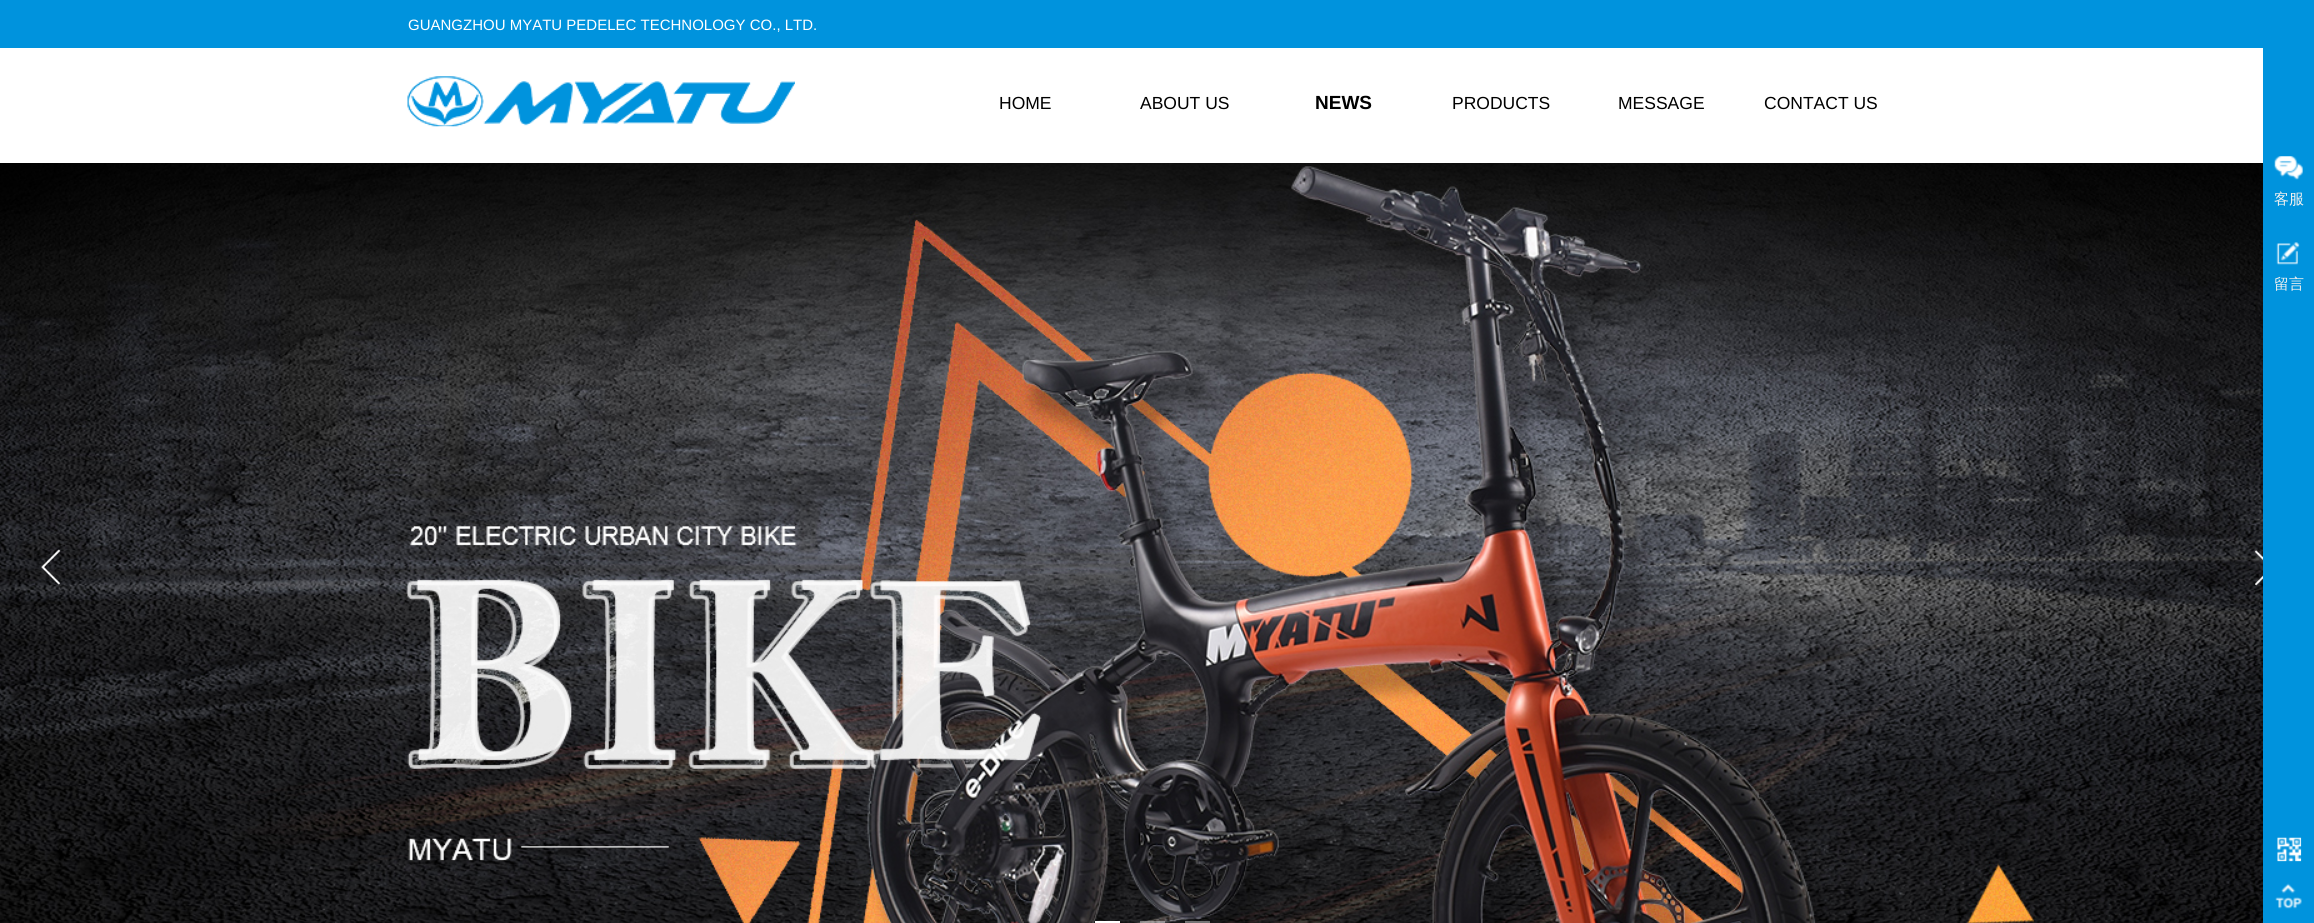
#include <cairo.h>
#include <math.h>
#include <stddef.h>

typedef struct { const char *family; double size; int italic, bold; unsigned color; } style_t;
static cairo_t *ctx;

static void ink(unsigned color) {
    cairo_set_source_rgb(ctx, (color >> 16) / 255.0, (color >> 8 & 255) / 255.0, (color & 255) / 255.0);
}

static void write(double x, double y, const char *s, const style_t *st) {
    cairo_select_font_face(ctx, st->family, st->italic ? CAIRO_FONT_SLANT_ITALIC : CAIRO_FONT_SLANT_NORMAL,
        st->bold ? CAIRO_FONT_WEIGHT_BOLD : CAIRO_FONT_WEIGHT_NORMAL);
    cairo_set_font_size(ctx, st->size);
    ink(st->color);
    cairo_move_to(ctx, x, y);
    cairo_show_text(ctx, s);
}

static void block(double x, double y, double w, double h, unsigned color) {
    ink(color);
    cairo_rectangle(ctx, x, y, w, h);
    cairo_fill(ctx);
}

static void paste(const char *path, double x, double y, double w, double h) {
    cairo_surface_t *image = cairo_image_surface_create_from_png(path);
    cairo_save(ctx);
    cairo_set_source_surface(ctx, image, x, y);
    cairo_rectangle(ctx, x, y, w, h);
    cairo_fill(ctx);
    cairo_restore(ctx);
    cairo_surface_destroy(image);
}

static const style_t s1 = {"Liberation Sans", 15, 0, 0, 0xffffff};
static const style_t s2 = {"Liberation Sans", 17.5, 0, 0, 0x000000};
static const style_t s3 = {"Liberation Sans", 19, 0, 1, 0x000000};
static const style_t s4 = {"WenQuanYi Zen Hei Medium", 15, 0, 0, 0xefefef};

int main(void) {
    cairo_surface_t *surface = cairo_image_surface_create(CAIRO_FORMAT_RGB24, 2314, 923);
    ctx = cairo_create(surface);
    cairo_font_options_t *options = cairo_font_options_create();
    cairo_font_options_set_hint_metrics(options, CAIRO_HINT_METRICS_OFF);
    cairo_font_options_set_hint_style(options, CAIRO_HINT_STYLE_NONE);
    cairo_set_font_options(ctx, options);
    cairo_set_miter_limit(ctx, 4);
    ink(0xffffff);
    cairo_paint(ctx);
    block(0, 0, 2263, 48, 0x0093dd);
    write(408, 30, "GUANGZHOU MYATU PEDELEC TECHNOLOGY CO., LTD.", &s1);
    paste("pic1.png", 407, 76, 388, 51);
    write(999, 109, "HOME", &s2);
    write(1140, 109, "ABOUT US", &s2);
    write(1315, 109, "NEWS", &s3);
    write(1452, 109, "PRODUCTS", &s2);
    write(1618, 109, "MESSAGE", &s2);
    write(1764, 109, "CONTACT US", &s2);
    paste("pic2.png", 0, 163, 2263, 760);
    paste("pic3.png", 41, 549, 20, 36);
    paste("pic4.png", 2254, 550, 9, 36);
    block(1095, 921, 25, 2, 0xffffff);
    cairo_set_source_rgba(ctx, 1, 1, 1, 0.4);
    cairo_rectangle(ctx, 1140, 921, 25, 2);
    cairo_fill(ctx);
    cairo_rectangle(ctx, 1185, 921, 25, 2);
    cairo_fill(ctx);
    block(2263, 0, 51, 923, 0x0093dd);
    paste("pic5.png", 2274, 156, 29, 24);
    write(2274, 204, "客服", &s4);
    paste("pic6.png", 2276, 242, 24, 23);
    write(2274, 289, "留言", &s4);
    paste("pic7.png", 2277, 837, 25, 25);
    paste("pic8.png", 2275, 883, 27, 26);
    cairo_surface_write_to_png(surface, "screenshot.png");
    cairo_font_options_destroy(options);
    cairo_destroy(ctx);
    cairo_surface_destroy(surface);
    return 0;
}
